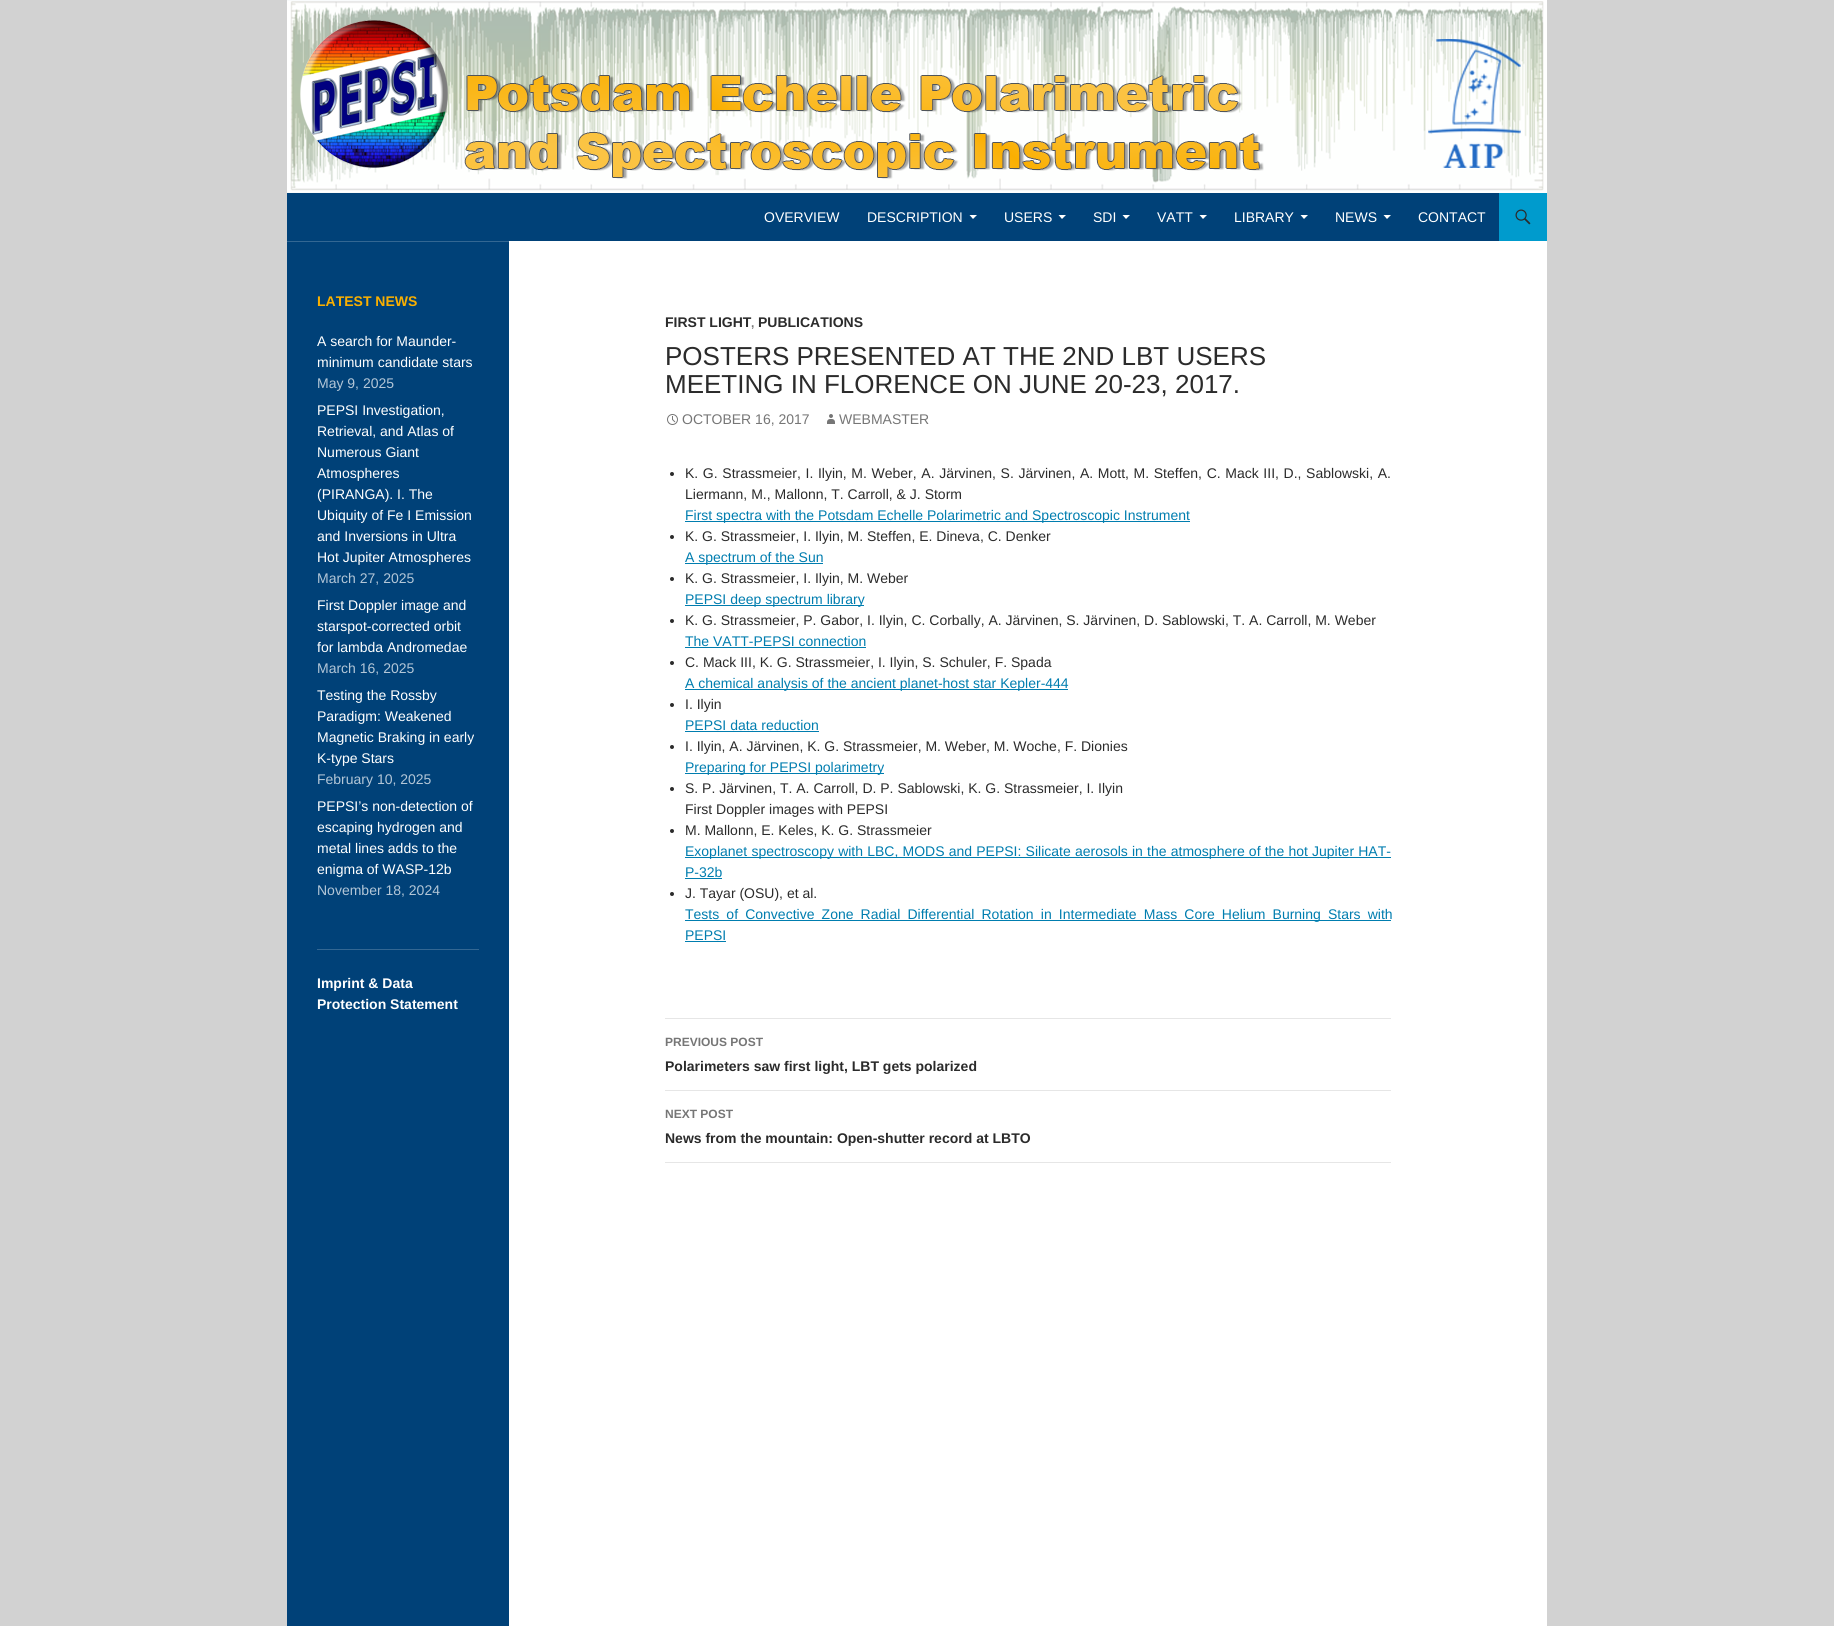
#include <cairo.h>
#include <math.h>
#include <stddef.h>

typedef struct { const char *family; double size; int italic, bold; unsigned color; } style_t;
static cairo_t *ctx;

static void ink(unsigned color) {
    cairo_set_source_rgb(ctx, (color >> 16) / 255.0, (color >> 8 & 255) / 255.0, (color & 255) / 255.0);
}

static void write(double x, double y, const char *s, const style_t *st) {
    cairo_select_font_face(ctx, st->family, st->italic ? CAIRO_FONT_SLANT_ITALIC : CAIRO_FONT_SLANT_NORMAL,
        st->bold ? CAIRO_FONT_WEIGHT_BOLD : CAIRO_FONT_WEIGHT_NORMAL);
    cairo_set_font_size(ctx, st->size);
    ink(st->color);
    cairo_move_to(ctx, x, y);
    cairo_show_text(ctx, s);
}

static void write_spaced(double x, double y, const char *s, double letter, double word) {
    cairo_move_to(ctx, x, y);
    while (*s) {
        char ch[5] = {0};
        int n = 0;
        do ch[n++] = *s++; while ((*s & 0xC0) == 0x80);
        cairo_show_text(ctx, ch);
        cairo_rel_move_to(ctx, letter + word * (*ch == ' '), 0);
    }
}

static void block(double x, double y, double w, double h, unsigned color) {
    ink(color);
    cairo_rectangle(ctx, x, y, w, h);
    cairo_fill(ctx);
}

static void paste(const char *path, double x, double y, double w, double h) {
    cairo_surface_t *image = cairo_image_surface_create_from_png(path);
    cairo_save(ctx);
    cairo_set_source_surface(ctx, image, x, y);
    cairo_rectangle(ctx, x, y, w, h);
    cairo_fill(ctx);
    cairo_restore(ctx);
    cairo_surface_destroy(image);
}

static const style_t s1 = {"Liberation Sans", 14, 0, 0, 0xffffff};
static const style_t s2 = {"Liberation Sans", 14, 0, 1, 0xfaaf00};
static const style_t s3 = {"Liberation Sans", 14, 0, 0, 0xb3c6d7};
static const style_t s4 = {"Liberation Sans", 14, 0, 1, 0xffffff};
static const style_t s5 = {"Liberation Sans", 14, 0, 1, 0x2b2b2b};
static const style_t s6 = {"Liberation Sans", 12, 0, 1, 0x767676};
static const style_t s7 = {"Liberation Sans", 26, 0, 0, 0x2b2b2b};
static const style_t s8 = {"Liberation Sans", 14, 0, 0, 0x767676};
static const style_t s9 = {"Liberation Sans", 14, 0, 0, 0x2b2b2b};
static const style_t s10 = {"Liberation Sans", 14, 0, 0, 0x007daf};

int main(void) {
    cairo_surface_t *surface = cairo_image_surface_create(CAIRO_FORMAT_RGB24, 1834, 1626);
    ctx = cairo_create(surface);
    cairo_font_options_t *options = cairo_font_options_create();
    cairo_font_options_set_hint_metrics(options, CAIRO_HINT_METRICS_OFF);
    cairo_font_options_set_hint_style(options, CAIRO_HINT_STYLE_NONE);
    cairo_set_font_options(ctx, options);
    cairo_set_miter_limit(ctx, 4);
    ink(0xd2d2d2);
    cairo_paint(ctx);
    block(509, 0, 1038, 1626, 0xffffff);
    block(287, 0, 222, 1626, 0x004178);
    paste("pic1.png", 287, 0, 1257, 193);
    block(509, 193, 990, 48, 0x004178);
    write(764, 222, "OVERVIEW", &s1);
    write(867, 222, "DESCRIPTION", &s1);
    cairo_new_path(ctx);
    cairo_move_to(ctx, 969.5, 215);
    cairo_line_to(ctx, 973, 219);
    cairo_line_to(ctx, 977, 215);
    cairo_close_path(ctx);
    cairo_fill(ctx);
    write(1004, 222, "USERS", &s1);
    cairo_new_path(ctx);
    cairo_move_to(ctx, 1058.5, 215);
    cairo_line_to(ctx, 1062, 219);
    cairo_line_to(ctx, 1066, 215);
    cairo_close_path(ctx);
    cairo_fill(ctx);
    write(1093, 222, "SDI", &s1);
    cairo_new_path(ctx);
    cairo_move_to(ctx, 1122.5, 215);
    cairo_line_to(ctx, 1126, 219);
    cairo_line_to(ctx, 1130, 215);
    cairo_close_path(ctx);
    cairo_fill(ctx);
    write(1157, 222, "VATT", &s1);
    cairo_new_path(ctx);
    cairo_move_to(ctx, 1199.5, 215);
    cairo_line_to(ctx, 1203, 219);
    cairo_line_to(ctx, 1207, 215);
    cairo_close_path(ctx);
    cairo_fill(ctx);
    write(1234, 222, "LIBRARY", &s1);
    cairo_new_path(ctx);
    cairo_move_to(ctx, 1300.5, 215);
    cairo_line_to(ctx, 1304, 219);
    cairo_line_to(ctx, 1308, 215);
    cairo_close_path(ctx);
    cairo_fill(ctx);
    write(1335, 222, "NEWS", &s1);
    cairo_new_path(ctx);
    cairo_move_to(ctx, 1383.5, 215);
    cairo_line_to(ctx, 1387, 219);
    cairo_line_to(ctx, 1391, 215);
    cairo_close_path(ctx);
    cairo_fill(ctx);
    write(1418, 222, "CONTACT", &s1);
    block(1499, 193, 48, 48, 0x009bcd);
    paste("pic2.png", 1515, 209, 16, 16);
    block(287, 241, 222, 1, 0x336793);
    write(317, 306, "LATEST NEWS", &s2);
    write(317, 346, "A search for Maunder-", &s1);
    write(317, 367, "minimum candidate stars", &s1);
    write(317, 388, "May 9, 2025", &s3);
    write(317, 415, "PEPSI Investigation,", &s1);
    write(317, 436, "Retrieval, and Atlas of", &s1);
    write(317, 457, "Numerous Giant", &s1);
    write(317, 478, "Atmospheres", &s1);
    write(317, 499, "(PIRANGA). I. The", &s1);
    write(317, 520, "Ubiquity of Fe I Emission", &s1);
    write(317, 541, "and Inversions in Ultra", &s1);
    write(317, 562, "Hot Jupiter Atmospheres", &s1);
    write(317, 583, "March 27, 2025", &s3);
    write(317, 610, "First Doppler image and", &s1);
    write(317, 631, "starspot-corrected orbit", &s1);
    write(317, 652, "for lambda Andromedae", &s1);
    write(317, 673, "March 16, 2025", &s3);
    write(317, 700, "Testing the Rossby", &s1);
    write(317, 721, "Paradigm: Weakened", &s1);
    write(317, 742, "Magnetic Braking in early", &s1);
    write(317, 763, "K-type Stars", &s1);
    write(317, 784, "February 10, 2025", &s3);
    write(317, 811, "PEPSI’s non-detection of", &s1);
    write(317, 832, "escaping hydrogen and", &s1);
    write(317, 853, "metal lines adds to the", &s1);
    write(317, 874, "enigma of WASP-12b", &s1);
    write(317, 895, "November 18, 2024", &s3);
    block(317, 949, 162, 1, 0x336793);
    write(317, 988, "Imprint & Data", &s4);
    write(317, 1009, "Protection Statement", &s4);
    write(665, 327, "FIRST LIGHT", &s5);
    write(751, 327, ",", &s6);
    write(758, 327, "PUBLICATIONS", &s5);
    write(665, 365, "POSTERS PRESENTED AT THE 2ND LBT USERS", &s7);
    write(665, 393, "MEETING IN FLORENCE ON JUNE 20-23, 2017.", &s7);
    paste("pic3.png", 667, 414, 11, 11);
    write(682, 424, "OCTOBER 16, 2017", &s8);
    paste("pic4.png", 827, 414, 8, 10);
    write(839, 424, "WEBMASTER", &s8);
    ink(0x2b2b2b);
    cairo_new_path(ctx);
    cairo_arc(ctx, 672, 474, 2, 0, 2 * M_PI);
    cairo_fill(ctx);
    write_spaced(685, 478, "K. G. Strassmeier, I. Ilyin, M. Weber, A. Järvinen, S. Järvinen, A. Mott, M. Steffen, C. Mack III, D., Sablowski, A.", 0, 0.75);
    write(685, 499, "Liermann, M., Mallonn, T. Carroll, & J. Storm", &s9);
    block(685, 521, 505, 1, 0x007daf);
    write(685, 520, "First spectra with the Potsdam Echelle Polarimetric and Spectroscopic Instrument", &s10);
    ink(0x2b2b2b);
    cairo_new_path(ctx);
    cairo_arc(ctx, 672, 537, 2, 0, 2 * M_PI);
    cairo_fill(ctx);
    write(685, 541, "K. G. Strassmeier, I. Ilyin, M. Steffen, E. Dineva, C. Denker", &s9);
    block(685, 563, 138, 1, 0x007daf);
    write(685, 562, "A spectrum of the Sun", &s10);
    ink(0x2b2b2b);
    cairo_new_path(ctx);
    cairo_arc(ctx, 672, 579, 2, 0, 2 * M_PI);
    cairo_fill(ctx);
    write(685, 583, "K. G. Strassmeier, I. Ilyin, M. Weber", &s9);
    block(685, 605, 179, 1, 0x007daf);
    write(685, 604, "PEPSI deep spectrum library", &s10);
    ink(0x2b2b2b);
    cairo_new_path(ctx);
    cairo_arc(ctx, 672, 621, 2, 0, 2 * M_PI);
    cairo_fill(ctx);
    write(685, 625, "K. G. Strassmeier, P. Gabor, I. Ilyin, C. Corbally, A. Järvinen, S. Järvinen, D. Sablowski, T. A. Carroll, M. Weber", &s9);
    write(685, 646, "The VATT-PEPSI connection", &s10);
    block(685, 647, 181, 1, 0x007daf);
    ink(0x2b2b2b);
    cairo_new_path(ctx);
    cairo_arc(ctx, 672, 663, 2, 0, 2 * M_PI);
    cairo_fill(ctx);
    write(685, 667, "C. Mack III, K. G. Strassmeier, I. Ilyin, S. Schuler, F. Spada", &s9);
    block(685, 689, 383, 1, 0x007daf);
    write(685, 688, "A chemical analysis of the ancient planet-host star Kepler-444", &s10);
    ink(0x2b2b2b);
    cairo_new_path(ctx);
    cairo_arc(ctx, 672, 705, 2, 0, 2 * M_PI);
    cairo_fill(ctx);
    write(685, 709, "I. Ilyin", &s9);
    write(685, 730, "PEPSI data reduction", &s10);
    block(685, 731, 134, 1, 0x007daf);
    ink(0x2b2b2b);
    cairo_new_path(ctx);
    cairo_arc(ctx, 672, 747, 2, 0, 2 * M_PI);
    cairo_fill(ctx);
    write(685, 751, "I. Ilyin, A. Järvinen, K. G. Strassmeier, M. Weber, M. Woche, F. Dionies", &s9);
    block(685, 773, 199, 1, 0x007daf);
    write(685, 772, "Preparing for PEPSI polarimetry", &s10);
    ink(0x2b2b2b);
    cairo_new_path(ctx);
    cairo_arc(ctx, 672, 789, 2, 0, 2 * M_PI);
    cairo_fill(ctx);
    write(685, 793, "S. P. Järvinen, T. A. Carroll, D. P. Sablowski, K. G. Strassmeier, I. Ilyin", &s9);
    write(685, 814, "First Doppler images with PEPSI", &s9);
    cairo_new_path(ctx);
    cairo_arc(ctx, 672, 831, 2, 0, 2 * M_PI);
    cairo_fill(ctx);
    write(685, 835, "M. Mallonn, E. Keles, K. G. Strassmeier", &s9);
    block(685, 857, 706, 1, 0x007daf);
    write_spaced(685, 856, "Exoplanet spectroscopy with LBC, MODS and PEPSI: Silicate aerosols in the atmosphere of the hot Jupiter HAT-", 0, 0.3);
    write(685, 877, "P-32b", &s10);
    block(685, 878, 37, 1, 0x007daf);
    ink(0x2b2b2b);
    cairo_new_path(ctx);
    cairo_arc(ctx, 672, 894, 2, 0, 2 * M_PI);
    cairo_fill(ctx);
    write(685, 898, "J. Tayar (OSU), et al.", &s9);
    block(685, 920, 706, 1, 0x007daf);
    write_spaced(685, 919, "Tests of Convective Zone Radial Differential Rotation in Intermediate Mass Core Helium Burning Stars with", 0, 3.25);
    write(685, 940, "PEPSI", &s10);
    block(685, 941, 41, 1, 0x007daf);
    block(665, 1018, 726, 1, 0xe6e6e6);
    block(665, 1090, 726, 1, 0xe6e6e6);
    write(665, 1046, "PREVIOUS POST", &s6);
    write(665, 1071, "Polarimeters saw first light, LBT gets polarized", &s5);
    block(665, 1162, 726, 1, 0xe6e6e6);
    write(665, 1118, "NEXT POST", &s6);
    write(665, 1143, "News from the mountain: Open-shutter record at LBTO", &s5);
    cairo_surface_write_to_png(surface, "screenshot.png");
    cairo_font_options_destroy(options);
    cairo_destroy(ctx);
    cairo_surface_destroy(surface);
    return 0;
}
